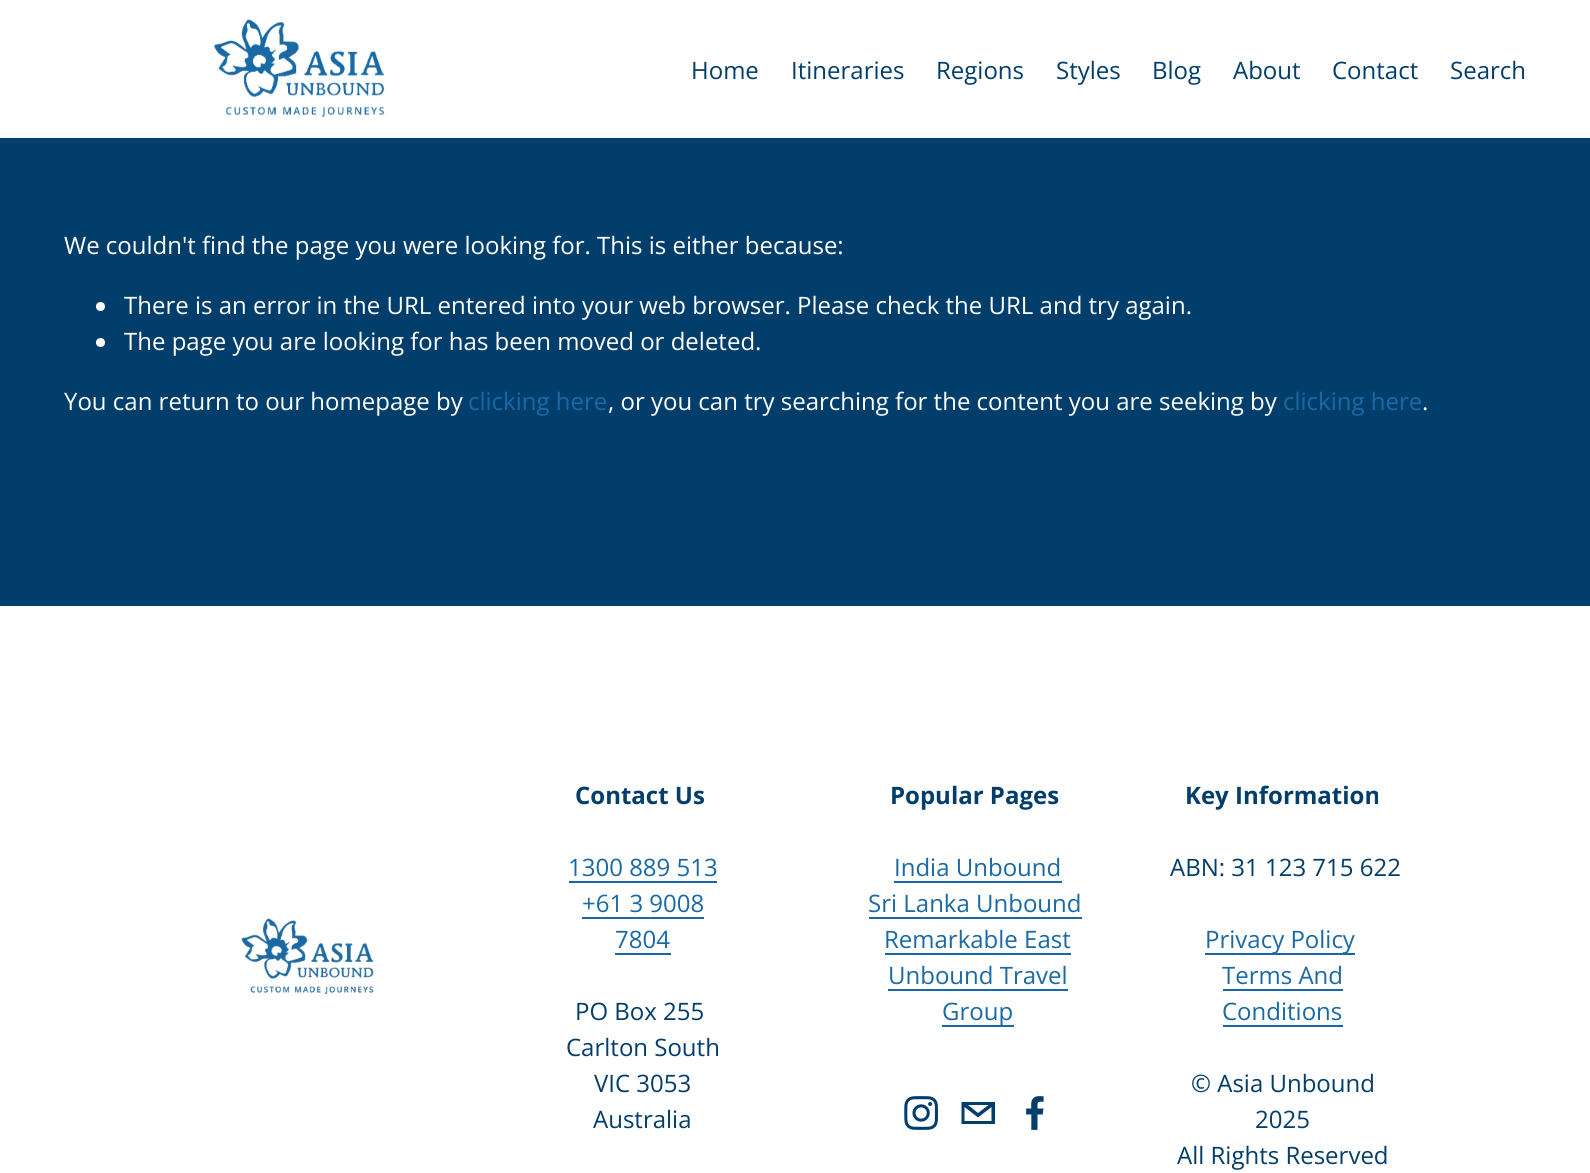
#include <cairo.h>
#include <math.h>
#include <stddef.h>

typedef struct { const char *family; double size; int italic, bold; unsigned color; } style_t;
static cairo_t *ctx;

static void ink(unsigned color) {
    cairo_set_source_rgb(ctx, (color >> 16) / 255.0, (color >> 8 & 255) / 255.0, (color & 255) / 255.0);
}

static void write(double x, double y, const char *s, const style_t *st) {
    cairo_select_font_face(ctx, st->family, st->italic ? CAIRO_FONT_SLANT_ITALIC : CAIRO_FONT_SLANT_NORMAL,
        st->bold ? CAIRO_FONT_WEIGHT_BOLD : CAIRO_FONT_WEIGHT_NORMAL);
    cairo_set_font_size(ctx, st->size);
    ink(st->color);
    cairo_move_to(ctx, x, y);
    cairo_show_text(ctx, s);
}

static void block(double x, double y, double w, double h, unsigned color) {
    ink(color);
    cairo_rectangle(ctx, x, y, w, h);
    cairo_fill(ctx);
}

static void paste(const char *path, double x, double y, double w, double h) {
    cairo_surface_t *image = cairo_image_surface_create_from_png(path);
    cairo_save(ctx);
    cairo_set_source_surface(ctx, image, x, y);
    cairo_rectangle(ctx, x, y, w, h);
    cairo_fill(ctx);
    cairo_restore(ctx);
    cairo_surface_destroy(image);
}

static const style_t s1 = {"Open Sans", 24, 0, 0, 0x023e6b};
static const style_t s2 = {"Open Sans", 24, 0, 0, 0xffffff};
static const style_t s3 = {"Open Sans", 24, 0, 0, 0x1969a5};
static const style_t s4 = {"Open Sans", 24, 0, 1, 0x023e6b};

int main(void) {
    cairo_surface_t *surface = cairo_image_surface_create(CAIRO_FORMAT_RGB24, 1590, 1173);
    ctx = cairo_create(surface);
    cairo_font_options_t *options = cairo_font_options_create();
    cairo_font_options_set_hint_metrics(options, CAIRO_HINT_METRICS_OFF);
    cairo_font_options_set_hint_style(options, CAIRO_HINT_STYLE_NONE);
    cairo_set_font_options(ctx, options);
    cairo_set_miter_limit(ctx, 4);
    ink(0x023e6b);
    cairo_paint(ctx);
    block(0, 0, 1590, 138, 0xffffff);
    paste("pic1.png", 214, 19, 171, 99);
    write(691, 79, "Home", &s1);
    write(791, 79, "Itineraries", &s1);
    write(936, 79, "Regions", &s1);
    write(1056, 79, "Styles", &s1);
    write(1152, 79, "Blog", &s1);
    write(1233, 79, "About", &s1);
    write(1332, 79, "Contact", &s1);
    write(1450, 79, "Search", &s1);
    write(64, 254, "We couldn't find the page you were looking for. This is either because:", &s2);
    cairo_new_path(ctx);
    cairo_arc(ctx, 100.5, 306.5, 4.5, 0, 2 * M_PI);
    cairo_fill(ctx);
    write(124, 314, "There is an error in the URL entered into your web browser. Please check the URL and try again.", &s2);
    cairo_new_path(ctx);
    cairo_arc(ctx, 100.5, 342.5, 4.5, 0, 2 * M_PI);
    cairo_fill(ctx);
    write(124, 350, "The page you are looking for has been moved or deleted.", &s2);
    write(64, 410, "You can return to our homepage by", &s2);
    write(468, 410, "clicking here", &s3);
    write(608, 410, ", or you can try searching for the content you are seeking by", &s2);
    write(1283, 410, "clicking here", &s3);
    write(1422, 410, ".", &s2);
    block(0, 606, 1590, 567, 0xffffff);
    paste("pic2.png", 241, 918, 133, 76);
    write(575, 804, "Contact Us", &s4);
    write(568, 876, "1300 889 513", &s3);
    block(569, 881, 148, 2, 0x1969a5);
    write(582, 912, "+61 3 9008", &s3);
    block(582, 917, 122, 2, 0x1969a5);
    write(615, 948, "7804", &s3);
    block(615, 953, 56, 2, 0x1969a5);
    write(575, 1020, "PO Box 255", &s1);
    write(566, 1056, "Carlton South", &s1);
    write(594, 1092, "VIC 3053", &s1);
    write(593, 1128, "Australia", &s1);
    write(890, 804, "Popular Pages", &s4);
    write(894, 876, "India Unbound", &s3);
    block(894, 881, 168, 2, 0x1969a5);
    write(868, 912, "Sri Lanka Unbound", &s3);
    block(869, 917, 213, 2, 0x1969a5);
    write(884, 948, "Remarkable East", &s3);
    block(885, 953, 186, 2, 0x1969a5);
    write(888, 984, "Unbound Travel", &s3);
    block(888, 989, 180, 2, 0x1969a5);
    block(942, 1025, 72, 2, 0x1969a5);
    write(942, 1020, "Group", &s3);
    write(1185, 804, "Key Information", &s4);
    write(1170, 876, "ABN: 31 123 715 622", &s1);
    block(1205, 953, 150, 2, 0x1969a5);
    write(1205, 948, "Privacy Policy", &s3);
    write(1222, 984, "Terms And", &s3);
    block(1223, 989, 120, 2, 0x1969a5);
    write(1222, 1020, "Conditions", &s3);
    block(1223, 1025, 120, 2, 0x1969a5);
    write(1191, 1092, "© Asia Unbound", &s1);
    write(1255, 1128, "2025", &s1);
    write(1177, 1164, "All Rights Reserved", &s1);
    paste("pic3.png", 904, 1096, 34, 34);
    cairo_new_path(ctx);
    cairo_move_to(ctx, 961.5, 1102);
    cairo_line_to(ctx, 961.5, 1124);
    cairo_line_to(ctx, 995, 1124);
    cairo_line_to(ctx, 995, 1102);
    cairo_close_path(ctx);
    cairo_move_to(ctx, 988.5, 1105);
    cairo_line_to(ctx, 978, 1113);
    cairo_line_to(ctx, 968, 1105);
    cairo_close_path(ctx);
    cairo_move_to(ctx, 964.5, 1121);
    cairo_line_to(ctx, 964.5, 1107);
    cairo_line_to(ctx, 978, 1117.5);
    cairo_line_to(ctx, 991.5, 1107);
    cairo_line_to(ctx, 991.5, 1121);
    cairo_close_path(ctx);
    cairo_fill(ctx);
    paste("pic4.png", 1026, 1096, 18, 34);
    cairo_surface_write_to_png(surface, "screenshot.png");
    cairo_font_options_destroy(options);
    cairo_destroy(ctx);
    cairo_surface_destroy(surface);
    return 0;
}
